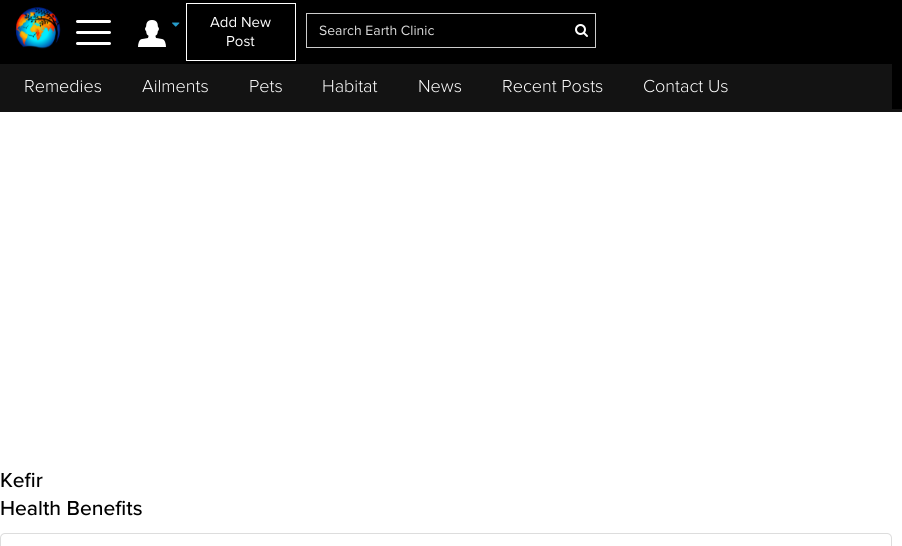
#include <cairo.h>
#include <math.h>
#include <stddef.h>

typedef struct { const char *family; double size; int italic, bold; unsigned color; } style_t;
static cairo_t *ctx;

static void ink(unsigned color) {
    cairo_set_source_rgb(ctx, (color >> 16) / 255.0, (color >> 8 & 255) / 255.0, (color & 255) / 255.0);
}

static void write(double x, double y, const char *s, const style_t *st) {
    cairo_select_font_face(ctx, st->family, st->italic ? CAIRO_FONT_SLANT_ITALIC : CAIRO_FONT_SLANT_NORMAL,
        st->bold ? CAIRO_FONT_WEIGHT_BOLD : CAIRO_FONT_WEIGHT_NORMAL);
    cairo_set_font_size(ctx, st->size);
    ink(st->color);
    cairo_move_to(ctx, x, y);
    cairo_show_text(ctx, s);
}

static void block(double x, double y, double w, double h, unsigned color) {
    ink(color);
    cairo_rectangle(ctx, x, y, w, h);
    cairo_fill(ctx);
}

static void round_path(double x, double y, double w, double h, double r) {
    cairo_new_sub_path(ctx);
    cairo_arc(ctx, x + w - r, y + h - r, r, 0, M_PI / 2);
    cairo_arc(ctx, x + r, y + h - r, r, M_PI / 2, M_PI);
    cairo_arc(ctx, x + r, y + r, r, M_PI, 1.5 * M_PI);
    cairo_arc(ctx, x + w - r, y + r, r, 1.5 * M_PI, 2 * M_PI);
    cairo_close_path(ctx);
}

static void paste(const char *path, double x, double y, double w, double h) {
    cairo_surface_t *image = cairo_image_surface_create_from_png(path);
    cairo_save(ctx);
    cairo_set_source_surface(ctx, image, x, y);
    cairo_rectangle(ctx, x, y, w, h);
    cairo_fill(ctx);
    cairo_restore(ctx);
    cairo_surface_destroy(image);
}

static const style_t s1 = {"Proxima Nova", 15, 0, 0, 0xffffff};
static const style_t s2 = {"Proxima Nova", 14, 0, 0, 0xdddddd};
static const style_t s3 = {"Proxima Nova Light", 18, 0, 0, 0xffffff};
static const style_t s4 = {"Proxima Nova Medium", 21, 0, 0, 0x000000};

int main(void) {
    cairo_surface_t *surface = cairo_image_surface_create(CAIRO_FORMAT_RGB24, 902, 546);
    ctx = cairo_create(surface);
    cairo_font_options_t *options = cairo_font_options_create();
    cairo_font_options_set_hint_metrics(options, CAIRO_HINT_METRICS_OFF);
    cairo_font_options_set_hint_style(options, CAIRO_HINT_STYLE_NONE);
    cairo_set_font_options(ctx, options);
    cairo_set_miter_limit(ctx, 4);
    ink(0xffffff);
    cairo_paint(ctx);
    block(0, 0, 902, 64, 0x000000);
    paste("pic1.png", 15, 7, 46, 42);
    ink(0xffffff);
    round_path(76, 20, 35, 3, 1.5);
    cairo_fill(ctx);
    round_path(76, 31, 35, 3, 1.5);
    cairo_fill(ctx);
    round_path(76, 42, 35, 3, 1.5);
    cairo_fill(ctx);
    paste("pic2.png", 138, 20, 28, 27);
    paste("pic3.png", 172, 22, 8, 5);
    cairo_rectangle(ctx, 186.5, 3.5, 109, 57);
    cairo_set_line_width(ctx, 1);
    cairo_stroke(ctx);
    write(210, 27, "Add New", &s1);
    write(226, 46, "Post", &s1);
    cairo_rectangle(ctx, 306.5, 13.5, 289, 34);
    ink(0xcccccc);
    cairo_stroke(ctx);
    write(319, 35, "Search Earth Clinic", &s2);
    paste("pic4.png", 575, 24, 13, 13);
    block(0, 109, 902, 3, 0x131313);
    block(892, 64, 10, 45, 0x000000);
    block(0, 64, 892, 45, 0x131313);
    write(24, 92, "Remedies", &s3);
    write(142, 92, "Ailments", &s3);
    write(249, 92, "Pets", &s3);
    write(322, 92, "Habitat", &s3);
    write(418, 92, "News", &s3);
    write(502, 92, "Recent Posts", &s3);
    write(643, 92, "Contact Us", &s3);
    write(0, 487, "Kefir", &s4);
    write(0, 515, "Health Benefits", &s4);
    round_path(0.5, 533.5, 891, 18, 4.5);
    ink(0xdddddd);
    cairo_stroke(ctx);
    cairo_surface_write_to_png(surface, "screenshot.png");
    cairo_font_options_destroy(options);
    cairo_destroy(ctx);
    cairo_surface_destroy(surface);
    return 0;
}
